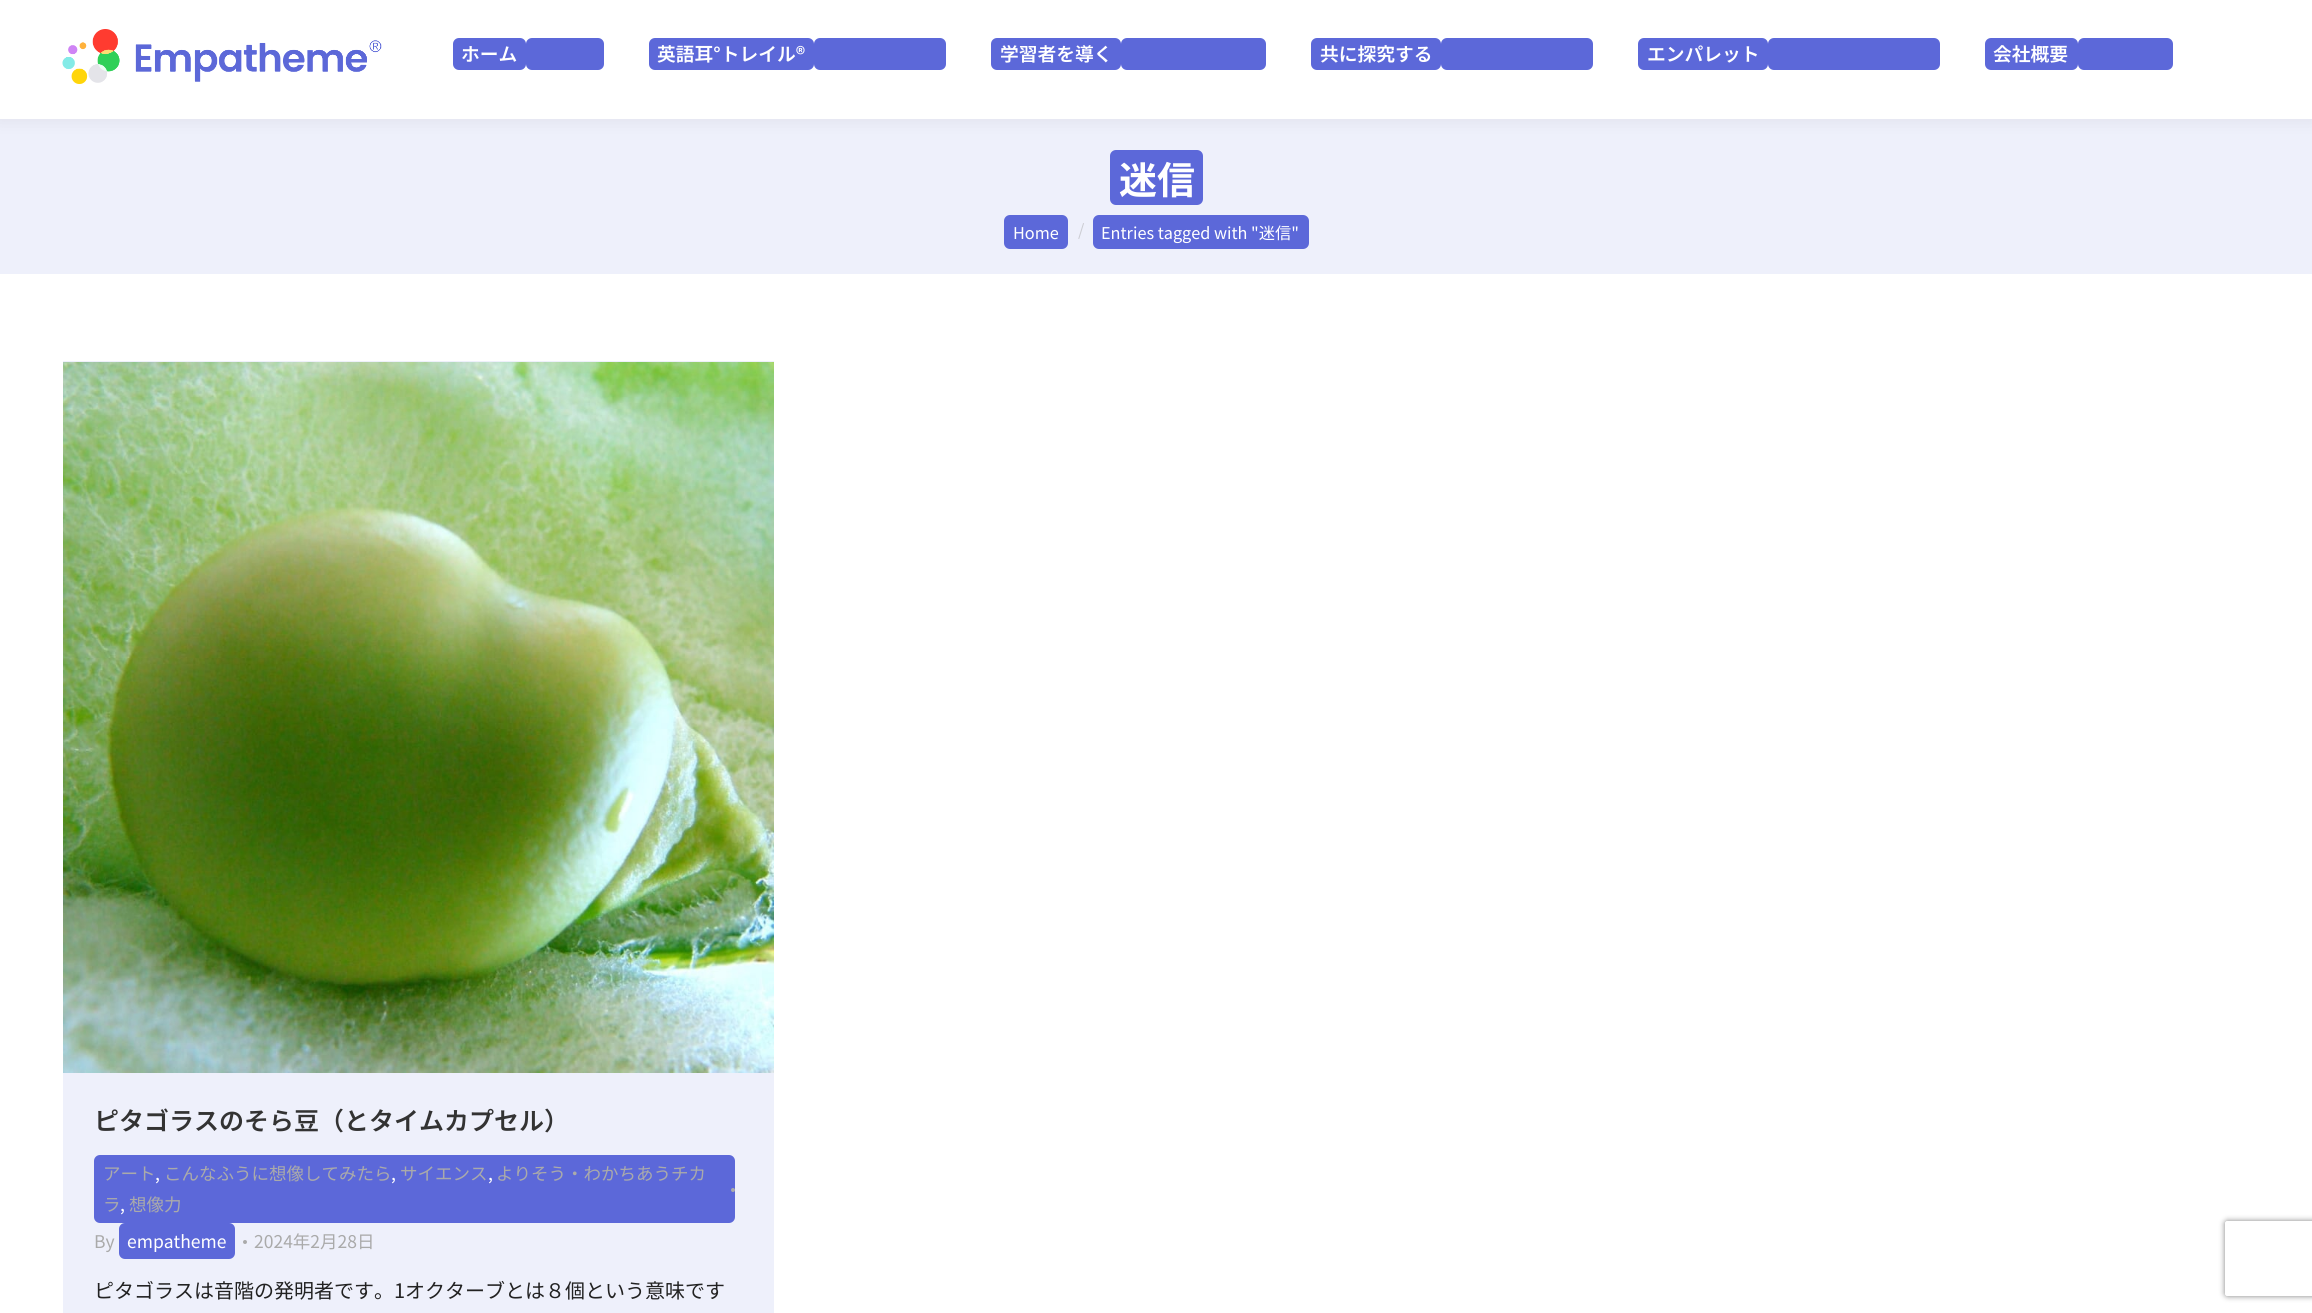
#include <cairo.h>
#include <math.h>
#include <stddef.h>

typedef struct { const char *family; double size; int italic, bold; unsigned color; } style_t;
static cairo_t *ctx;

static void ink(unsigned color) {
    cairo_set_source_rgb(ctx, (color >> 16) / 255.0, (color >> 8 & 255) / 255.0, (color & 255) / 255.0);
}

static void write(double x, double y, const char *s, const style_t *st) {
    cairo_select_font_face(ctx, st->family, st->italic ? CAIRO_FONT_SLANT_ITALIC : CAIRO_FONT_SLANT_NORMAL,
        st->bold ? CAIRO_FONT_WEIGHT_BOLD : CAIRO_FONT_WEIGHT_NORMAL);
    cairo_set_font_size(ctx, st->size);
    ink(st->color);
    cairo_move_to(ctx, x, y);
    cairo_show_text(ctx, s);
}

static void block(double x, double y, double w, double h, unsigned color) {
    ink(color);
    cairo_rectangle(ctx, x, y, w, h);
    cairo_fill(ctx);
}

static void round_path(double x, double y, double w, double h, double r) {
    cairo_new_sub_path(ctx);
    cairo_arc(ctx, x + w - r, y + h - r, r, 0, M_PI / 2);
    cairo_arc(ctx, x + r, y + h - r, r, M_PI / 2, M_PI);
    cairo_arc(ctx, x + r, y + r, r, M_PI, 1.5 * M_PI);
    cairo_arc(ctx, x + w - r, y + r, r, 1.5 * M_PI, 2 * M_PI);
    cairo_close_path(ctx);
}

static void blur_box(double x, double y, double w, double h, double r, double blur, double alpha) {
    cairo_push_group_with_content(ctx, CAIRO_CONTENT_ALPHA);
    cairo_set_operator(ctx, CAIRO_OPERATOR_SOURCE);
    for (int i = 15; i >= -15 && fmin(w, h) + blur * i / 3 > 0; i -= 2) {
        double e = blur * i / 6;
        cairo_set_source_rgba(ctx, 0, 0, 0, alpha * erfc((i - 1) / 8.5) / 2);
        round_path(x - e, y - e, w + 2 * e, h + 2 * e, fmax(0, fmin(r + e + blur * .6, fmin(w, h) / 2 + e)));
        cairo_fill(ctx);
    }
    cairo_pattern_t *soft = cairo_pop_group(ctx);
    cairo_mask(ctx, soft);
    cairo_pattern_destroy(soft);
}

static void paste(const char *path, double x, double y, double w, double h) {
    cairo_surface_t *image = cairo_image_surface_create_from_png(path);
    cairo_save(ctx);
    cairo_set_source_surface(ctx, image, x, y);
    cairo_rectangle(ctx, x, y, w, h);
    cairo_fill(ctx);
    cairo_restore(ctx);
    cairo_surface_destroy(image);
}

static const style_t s1 = {"Noto Sans JP SemiBold", 18.75, 0, 0, 0xffffff};
static const style_t s2 = {"Noto Sans JP", 38, 0, 1, 0xffffff};
static const style_t s3 = {"Noto Sans JP", 16.25, 0, 0, 0xffffff};
static const style_t s4 = {"Noto Sans JP", 16.25, 0, 0, 0xcccdd3};
static const style_t s5 = {"Noto Sans JP SemiBold", 25, 0, 0, 0x333333};
static const style_t s6 = {"Noto Sans JP", 17.5, 0, 0, 0xaaaaaa};
static const style_t s7 = {"Noto Sans JP", 17.5, 0, 0, 0xffffff};
static const style_t s8 = {"Noto Sans JP", 20, 0, 0, 0x222222};

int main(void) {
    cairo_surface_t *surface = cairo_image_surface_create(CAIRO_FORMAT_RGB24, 2312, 1313);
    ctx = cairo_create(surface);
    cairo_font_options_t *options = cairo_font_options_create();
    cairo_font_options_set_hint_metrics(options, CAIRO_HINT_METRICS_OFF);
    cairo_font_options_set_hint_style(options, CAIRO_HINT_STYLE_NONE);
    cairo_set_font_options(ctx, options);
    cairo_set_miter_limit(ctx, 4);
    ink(0xffffff);
    cairo_paint(ctx);
    block(0, 119, 2312, 155, 0xeef0fb);
    ink(0x000000);
    blur_box(-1, -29, 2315, 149, 0, 9.5, 0.07);
    block(0, 0, 2312, 119, 0xffffff);
    paste("pic1.png", 62, 29, 320, 55);
    ink(0x5c68d9);
    round_path(453, 38, 73, 32, 6);
    cairo_fill(ctx);
    write(461, 61, "ホーム", &s1);
    ink(0x5c68d9);
    round_path(526, 38, 78, 32, 6);
    cairo_fill(ctx);
    round_path(649, 38, 165, 32, 6);
    cairo_fill(ctx);
    write(657, 61, "英語耳°トレイル®", &s1);
    ink(0x5c68d9);
    round_path(814, 38, 132, 32, 6);
    cairo_fill(ctx);
    round_path(991, 38, 130, 32, 6);
    cairo_fill(ctx);
    write(1000, 61, "学習者を導く", &s1);
    ink(0x5c68d9);
    round_path(1121, 38, 145, 32, 6);
    cairo_fill(ctx);
    round_path(1311, 38, 130, 32, 6);
    cairo_fill(ctx);
    write(1320, 61, "共に探究する", &s1);
    ink(0x5c68d9);
    round_path(1441, 38, 152, 32, 6);
    cairo_fill(ctx);
    round_path(1638, 38, 130, 32, 6);
    cairo_fill(ctx);
    write(1647, 61, "エンパレット", &s1);
    ink(0x5c68d9);
    round_path(1768, 38, 172, 32, 6);
    cairo_fill(ctx);
    round_path(1985, 38, 93, 32, 6);
    cairo_fill(ctx);
    write(1993, 61, "会社概要", &s1);
    ink(0x5c68d9);
    round_path(2078, 38, 95, 32, 6);
    cairo_fill(ctx);
    round_path(1110, 150, 93, 55, 6);
    cairo_fill(ctx);
    write(1119, 194, "迷信", &s2);
    ink(0x5c68d9);
    round_path(1004, 215, 64, 34, 6);
    cairo_fill(ctx);
    write(1013, 239, "Home", &s3);
    write(1078, 236, "/", &s4);
    ink(0x5c68d9);
    round_path(1093, 215, 216, 34, 6);
    cairo_fill(ctx);
    write(1101, 239, "Entries tagged with \"迷信\"", &s3);
    block(63, 361, 711, 952, 0xeef0fb);
    paste("pic2.png", 63, 362, 711, 711);
    write(94, 1130, "ピタゴラスのそら豆（とタイムカプセル）", &s5);
    ink(0x5c68d9);
    round_path(94, 1155, 641, 68, 6);
    cairo_fill(ctx);
    write(103, 1180, "アート", &s6);
    write(155, 1180, ",", &s7);
    write(164, 1180, "こんなふうに想像してみたら", &s6);
    write(391, 1180, ",", &s7);
    write(400, 1180, "サイエンス", &s6);
    write(488, 1180, ",", &s7);
    write(496, 1180, "よりそう・わかちあうチカ", &s6);
    cairo_new_path(ctx);
    cairo_arc(ctx, 733, 1190, 2, 0, 2 * M_PI);
    cairo_fill(ctx);
    write(103, 1211, "ラ", &s6);
    write(120, 1211, ",", &s7);
    write(129, 1211, "想像力", &s6);
    write(94, 1248, "By", &s6);
    ink(0x5c68d9);
    round_path(119, 1223, 116, 36, 6);
    cairo_fill(ctx);
    write(127, 1248, "empatheme", &s7);
    ink(0xaaaaaa);
    cairo_new_path(ctx);
    cairo_arc(ctx, 245, 1242, 2, 0, 2 * M_PI);
    cairo_fill(ctx);
    write(254, 1248, "2024年2月28日", &s6);
    write(94, 1298, "ピタゴラスは音階の発明者です。1オクターブとは８個という意味です", &s8);
    cairo_save(ctx);
    cairo_set_fill_rule(ctx, CAIRO_FILL_RULE_EVEN_ODD);
    cairo_new_path(ctx);
    cairo_move_to(ctx, 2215, 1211);
    cairo_line_to(ctx, 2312, 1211);
    cairo_line_to(ctx, 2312, 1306);
    cairo_line_to(ctx, 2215, 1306);
    cairo_close_path(ctx);
    cairo_move_to(ctx, 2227.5, 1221);
    cairo_line_to(ctx, 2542.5, 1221);
    cairo_curve_to(ctx, 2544, 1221, 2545, 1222, 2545, 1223.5);
    cairo_line_to(ctx, 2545, 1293.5);
    cairo_curve_to(ctx, 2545, 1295, 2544, 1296, 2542.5, 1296);
    cairo_line_to(ctx, 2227.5, 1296);
    cairo_curve_to(ctx, 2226, 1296, 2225, 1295, 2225, 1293.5);
    cairo_line_to(ctx, 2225, 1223.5);
    cairo_curve_to(ctx, 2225, 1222, 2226, 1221, 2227.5, 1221);
    cairo_close_path(ctx);
    cairo_clip(ctx);
    ink(0x808080);
    blur_box(2225, 1221, 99, 75, 2.5, 3, 1);
    cairo_restore(ctx);
    cairo_surface_write_to_png(surface, "screenshot.png");
    cairo_font_options_destroy(options);
    cairo_destroy(ctx);
    cairo_surface_destroy(surface);
    return 0;
}
